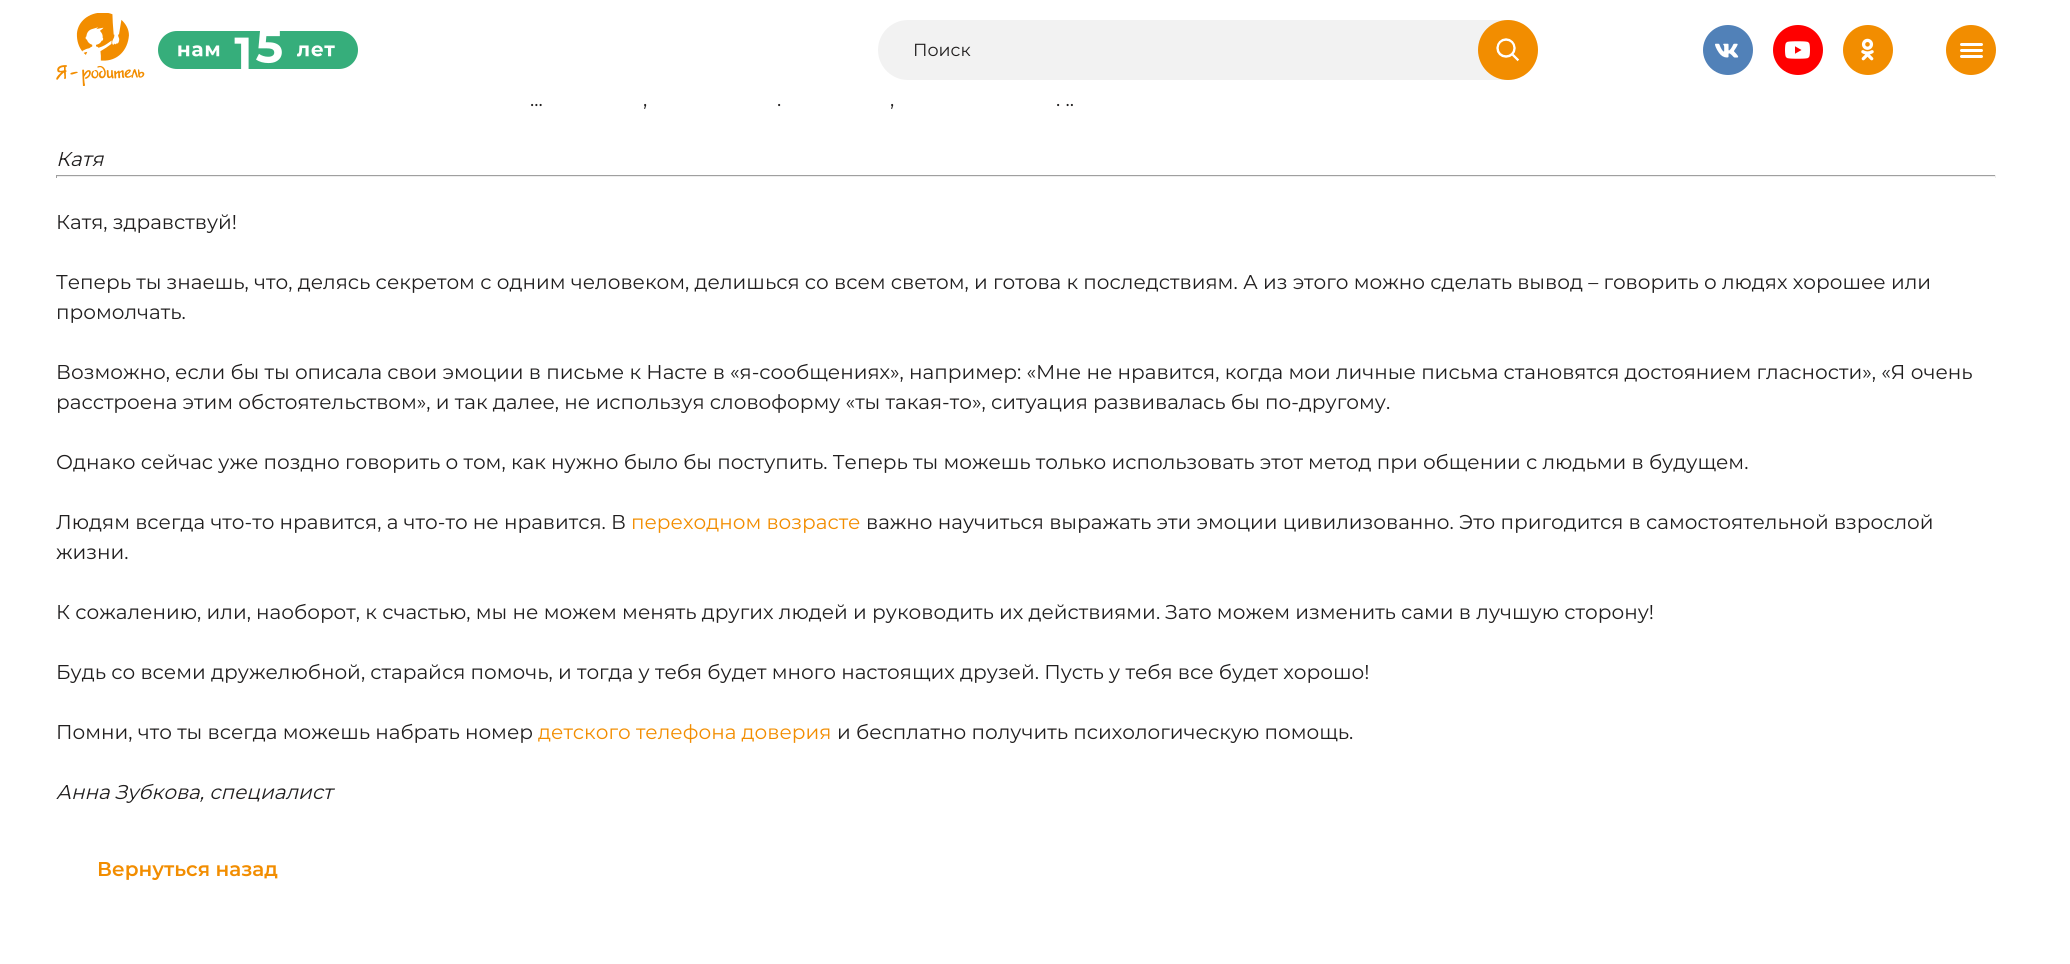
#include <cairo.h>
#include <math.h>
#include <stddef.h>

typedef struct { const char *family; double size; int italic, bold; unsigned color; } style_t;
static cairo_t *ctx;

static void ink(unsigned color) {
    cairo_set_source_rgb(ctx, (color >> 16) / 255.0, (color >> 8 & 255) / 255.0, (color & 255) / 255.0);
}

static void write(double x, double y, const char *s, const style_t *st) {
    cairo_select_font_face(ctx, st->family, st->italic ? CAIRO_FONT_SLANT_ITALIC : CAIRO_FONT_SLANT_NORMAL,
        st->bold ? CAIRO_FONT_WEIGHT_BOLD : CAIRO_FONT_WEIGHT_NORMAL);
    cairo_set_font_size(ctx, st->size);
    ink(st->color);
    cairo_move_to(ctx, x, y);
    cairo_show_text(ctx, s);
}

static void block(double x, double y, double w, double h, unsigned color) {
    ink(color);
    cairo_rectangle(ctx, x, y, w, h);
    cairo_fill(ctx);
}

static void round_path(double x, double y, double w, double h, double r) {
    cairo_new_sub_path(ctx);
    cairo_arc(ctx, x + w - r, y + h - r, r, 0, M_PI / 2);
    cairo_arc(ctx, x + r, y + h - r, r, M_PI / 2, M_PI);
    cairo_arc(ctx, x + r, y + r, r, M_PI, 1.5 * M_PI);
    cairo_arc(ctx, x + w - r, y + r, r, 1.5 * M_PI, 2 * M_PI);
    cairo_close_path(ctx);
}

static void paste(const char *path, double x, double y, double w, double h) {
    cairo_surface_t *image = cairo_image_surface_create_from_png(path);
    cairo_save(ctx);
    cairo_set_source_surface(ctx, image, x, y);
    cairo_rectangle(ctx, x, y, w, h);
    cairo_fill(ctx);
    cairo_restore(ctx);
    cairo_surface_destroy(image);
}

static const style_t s1 = {"Montserrat", 17.5, 0, 0, 0x211f1f};
static const style_t s2 = {"Montserrat", 20, 0, 0, 0x211f1f};
static const style_t s3 = {"Montserrat", 20, 1, 0, 0x211f1f};
static const style_t s4 = {"Montserrat", 20, 0, 0, 0xf28d00};
static const style_t s5 = {"Montserrat SemiBold", 20, 0, 0, 0xf28d00};

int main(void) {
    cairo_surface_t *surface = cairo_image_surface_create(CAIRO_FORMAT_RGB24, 2070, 964);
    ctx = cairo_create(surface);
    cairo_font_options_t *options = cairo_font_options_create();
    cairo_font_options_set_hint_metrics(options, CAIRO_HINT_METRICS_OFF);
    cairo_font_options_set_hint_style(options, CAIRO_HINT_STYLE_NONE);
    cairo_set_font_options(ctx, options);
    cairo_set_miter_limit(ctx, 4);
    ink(0xffffff);
    cairo_paint(ctx);
    paste("pic1.png", 56, 13, 89, 73);
    paste("pic2.png", 158, 31, 200, 38);
    ink(0xf2f2f2);
    round_path(878, 20, 660, 60, 30);
    cairo_fill(ctx);
    write(913, 56, "Поиск", &s1);
    ink(0xf28d00);
    cairo_new_path(ctx);
    cairo_arc(ctx, 1508, 50, 30, 0, 2 * M_PI);
    cairo_fill(ctx);
    paste("pic3.png", 1496, 38, 24, 24);
    paste("pic4.png", 1703, 25, 50, 50);
    paste("pic5.png", 1773, 25, 50, 50);
    paste("pic6.png", 1843, 25, 50, 50);
    cairo_arc(ctx, 1971, 50, 25, 0, 2 * M_PI);
    cairo_fill(ctx);
    ink(0xffffff);
    round_path(1960, 43, 23, 3, 1.5);
    cairo_fill(ctx);
    round_path(1960, 49, 23, 3, 1.5);
    cairo_fill(ctx);
    round_path(1960, 55, 23, 3, 1.5);
    cairo_fill(ctx);
    write(530, 106, "...", &s2);
    write(643, 106, ",", &s2);
    write(777, 106, ".", &s2);
    write(890, 106, ",", &s2);
    write(1056, 106, ". ..", &s2);
    write(56, 166, "Катя", &s3);
    block(56, 175, 1940, 1, 0x9f9f9f);
    block(1995, 175, 1, 3, 0xeeeeee);
    block(56, 176, 1940, 1, 0xeeeeee);
    block(56, 175, 1, 3, 0x9f9f9f);
    write(56, 229, "Катя, здравствуй!", &s2);
    write(56, 289, "Теперь ты знаешь, что, делясь секретом с одним человеком, делишься со всем светом, и готова к последствиям. А из этого можно сделать вывод – говорить о людях хорошее или", &s2);
    write(56, 319, "промолчать.", &s2);
    write(56, 379, "Возможно, если бы ты описала свои эмоции в письме к Насте в «я-сообщениях», например: «Мне не нравится, когда мои личные письма становятся достоянием гласности», «Я очень", &s2);
    write(56, 409, "расстроена этим обстоятельством», и так далее, не используя словоформу «ты такая-то», ситуация развивалась бы по-другому.", &s2);
    write(56, 469, "Однако сейчас уже поздно говорить о том, как нужно было бы поступить. Теперь ты можешь только использовать этот метод при общении с людьми в будущем.", &s2);
    write(56, 529, "Людям всегда что-то нравится, а что-то не нравится. В", &s2);
    write(631, 529, "переходном возрасте", &s4);
    write(866, 529, "важно научиться выражать эти эмоции цивилизованно. Это пригодится в самостоятельной взрослой", &s2);
    write(56, 559, "жизни.", &s2);
    write(56, 619, "К сожалению, или, наоборот, к счастью, мы не можем менять других людей и руководить их действиями. Зато можем изменить сами в лучшую сторону!", &s2);
    write(56, 679, "Будь со всеми дружелюбной, старайся помочь, и тогда у тебя будет много настоящих друзей. Пусть у тебя все будет хорошо!", &s2);
    write(56, 739, "Помни, что ты всегда можешь набрать номер", &s2);
    write(538, 739, "детского телефона доверия", &s4);
    write(837, 739, "и бесплатно получить психологическую помощь.", &s2);
    write(56, 799, "Анна Зубкова, специалист", &s3);
    write(97, 876, "Вернуться назад", &s5);
    cairo_surface_write_to_png(surface, "screenshot.png");
    cairo_font_options_destroy(options);
    cairo_destroy(ctx);
    cairo_surface_destroy(surface);
    return 0;
}
